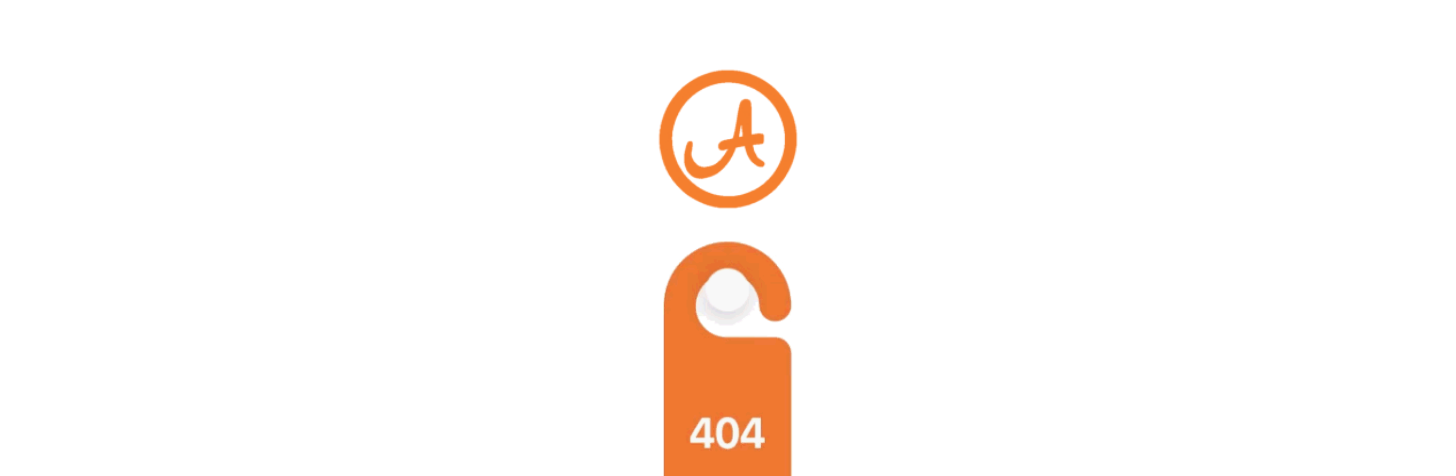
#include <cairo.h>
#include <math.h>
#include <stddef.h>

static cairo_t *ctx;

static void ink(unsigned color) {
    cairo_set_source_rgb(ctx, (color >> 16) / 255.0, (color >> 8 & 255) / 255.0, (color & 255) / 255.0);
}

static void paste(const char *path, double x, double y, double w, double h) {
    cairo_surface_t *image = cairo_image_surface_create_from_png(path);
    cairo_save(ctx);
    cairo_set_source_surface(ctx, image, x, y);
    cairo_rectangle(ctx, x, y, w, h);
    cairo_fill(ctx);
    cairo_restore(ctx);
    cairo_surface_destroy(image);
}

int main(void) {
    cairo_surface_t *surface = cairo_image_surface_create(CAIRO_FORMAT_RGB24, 1456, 476);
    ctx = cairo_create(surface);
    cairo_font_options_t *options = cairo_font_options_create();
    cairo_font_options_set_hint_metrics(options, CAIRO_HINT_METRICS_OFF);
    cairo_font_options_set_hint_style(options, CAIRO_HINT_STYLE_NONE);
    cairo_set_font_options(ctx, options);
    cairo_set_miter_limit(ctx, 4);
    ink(0xffffff);
    cairo_paint(ctx);
    paste("pic1.png", 658, 69, 140, 140);
    paste("pic2.png", 663, 241, 130, 235);
    cairo_surface_write_to_png(surface, "screenshot.png");
    cairo_font_options_destroy(options);
    cairo_destroy(ctx);
    cairo_surface_destroy(surface);
    return 0;
}
